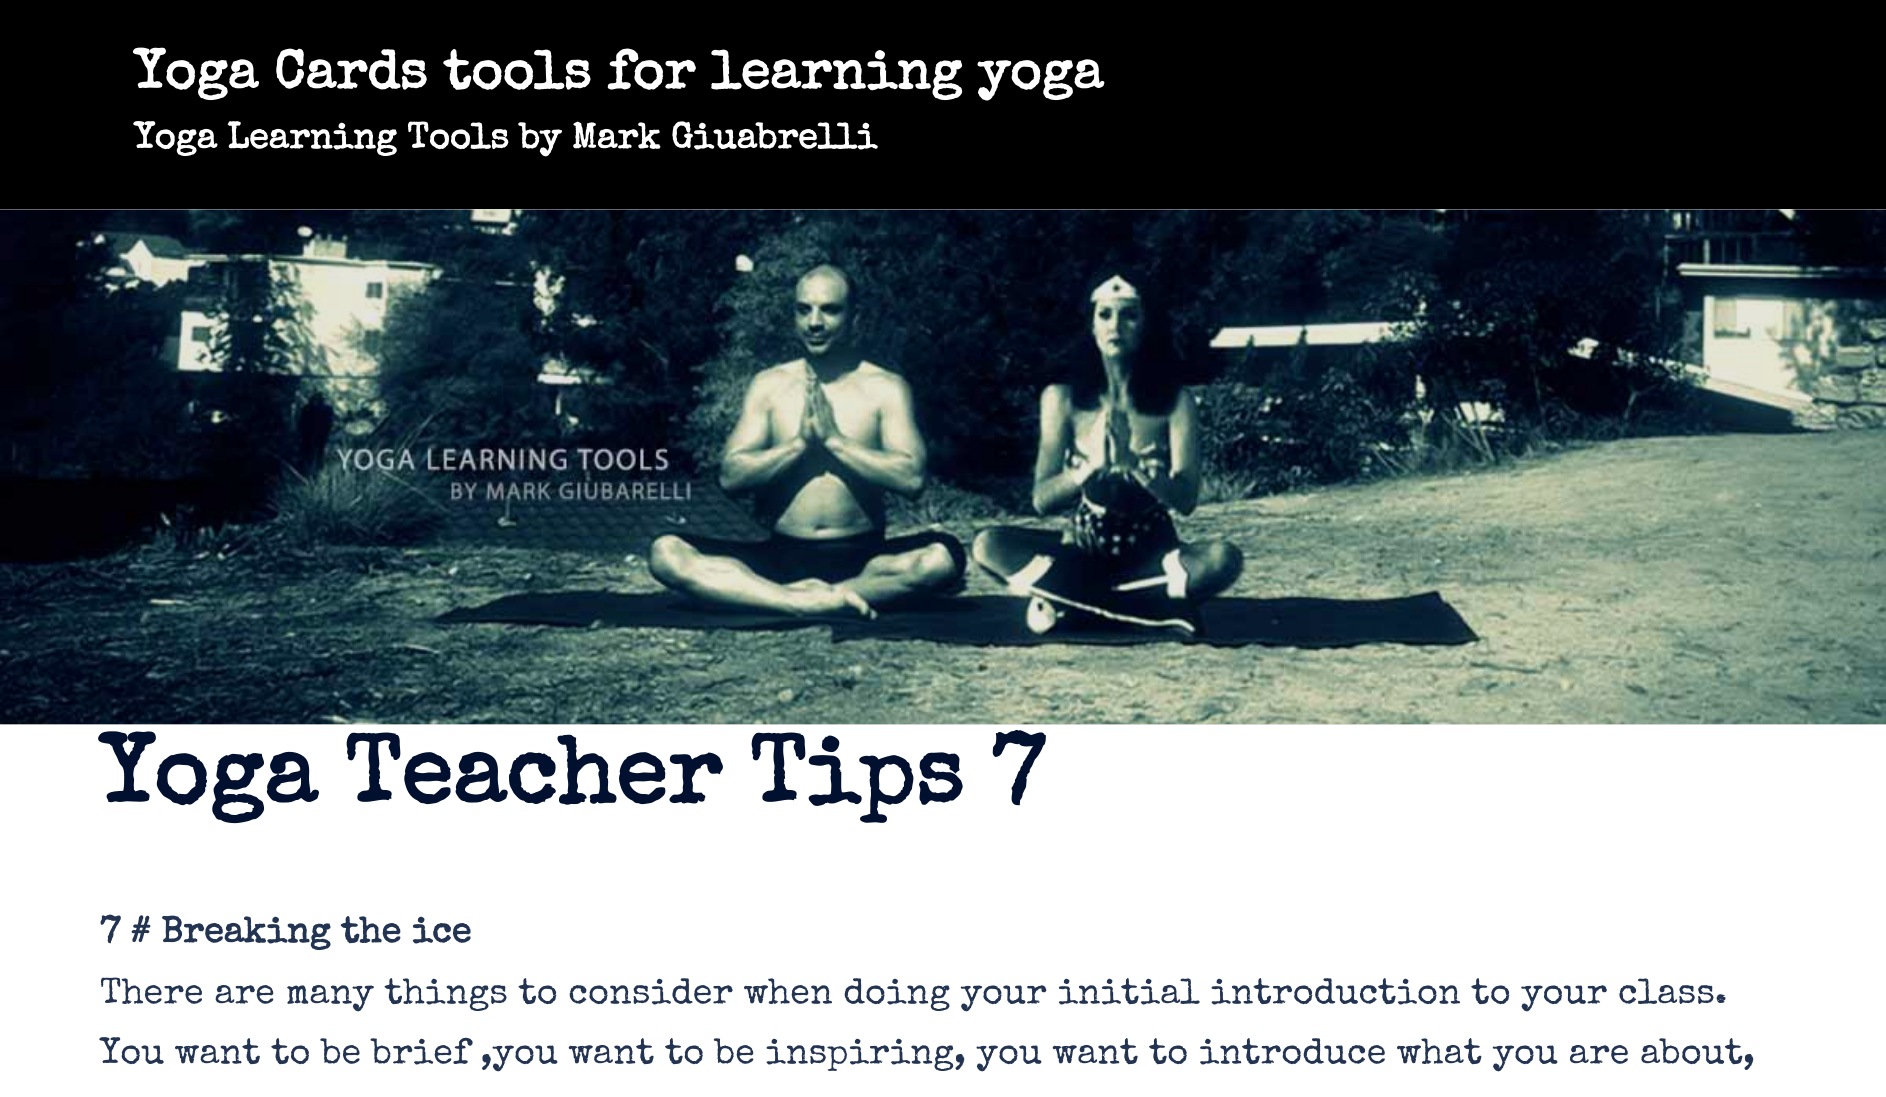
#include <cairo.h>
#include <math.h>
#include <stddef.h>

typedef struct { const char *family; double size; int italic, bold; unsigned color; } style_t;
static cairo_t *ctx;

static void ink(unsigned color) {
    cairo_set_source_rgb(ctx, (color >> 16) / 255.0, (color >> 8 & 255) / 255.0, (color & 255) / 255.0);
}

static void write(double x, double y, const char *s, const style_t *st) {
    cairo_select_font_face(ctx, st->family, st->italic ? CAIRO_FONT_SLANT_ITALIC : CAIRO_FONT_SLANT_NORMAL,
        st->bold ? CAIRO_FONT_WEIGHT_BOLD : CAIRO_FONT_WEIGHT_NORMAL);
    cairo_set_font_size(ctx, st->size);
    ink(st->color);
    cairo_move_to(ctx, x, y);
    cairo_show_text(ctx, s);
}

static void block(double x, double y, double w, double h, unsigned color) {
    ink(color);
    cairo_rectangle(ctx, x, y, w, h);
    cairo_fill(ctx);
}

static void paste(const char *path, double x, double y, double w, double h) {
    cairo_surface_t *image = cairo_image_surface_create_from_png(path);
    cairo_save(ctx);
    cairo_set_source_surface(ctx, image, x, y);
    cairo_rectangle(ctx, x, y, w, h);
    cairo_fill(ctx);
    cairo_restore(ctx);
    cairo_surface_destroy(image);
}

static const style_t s1 = {"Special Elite", 54, 0, 1, 0xffffff};
static const style_t s2 = {"Special Elite", 36, 0, 1, 0xffffff};
static const style_t s3 = {"Special Elite", 94.5, 0, 1, 0x00102e};
static const style_t s4 = {"Special Elite", 36, 0, 1, 0x233452};
static const style_t s5 = {"Special Elite", 36, 0, 0, 0x233452};

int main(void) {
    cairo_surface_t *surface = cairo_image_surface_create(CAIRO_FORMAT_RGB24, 1886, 1097);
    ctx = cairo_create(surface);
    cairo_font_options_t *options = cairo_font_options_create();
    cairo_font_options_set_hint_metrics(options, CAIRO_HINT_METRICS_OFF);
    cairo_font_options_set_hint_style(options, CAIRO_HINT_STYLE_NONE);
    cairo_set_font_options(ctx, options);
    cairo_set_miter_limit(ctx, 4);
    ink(0xffffff);
    cairo_paint(ctx);
    block(0, 209, 1886, 516, 0xe6e6e6);
    block(0, 0, 1886, 209, 0x000000);
    write(134, 88, "Yoga Cards tools for learning yoga", &s1);
    write(134, 148, "Yoga Learning Tools by Mark Giuabrelli", &s2);
    paste("pic1.png", 0, 209, 1886, 516);
    write(100, 802, "Yoga Teacher Tips 7", &s3);
    write(100, 942, "7 # Breaking the ice", &s4);
    write(100, 1003, "There are many things to consider when doing your initial introduction to your class.", &s5);
    write(100, 1063, "You want to be brief ,you want to be inspiring, you want to introduce what you are about,", &s5);
    cairo_surface_write_to_png(surface, "screenshot.png");
    cairo_font_options_destroy(options);
    cairo_destroy(ctx);
    cairo_surface_destroy(surface);
    return 0;
}
